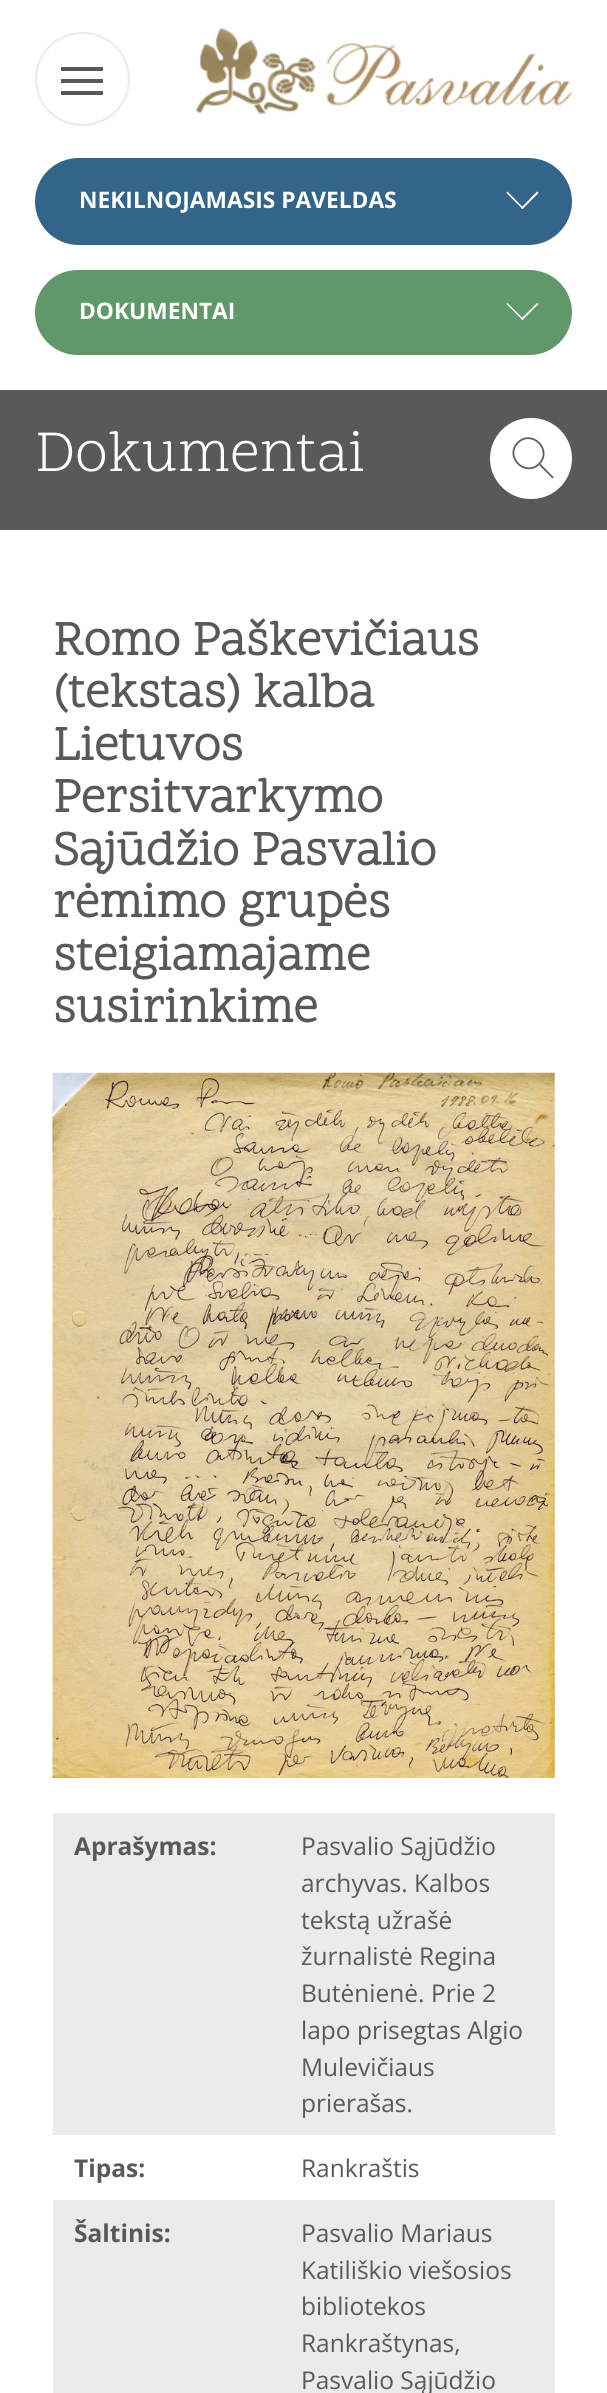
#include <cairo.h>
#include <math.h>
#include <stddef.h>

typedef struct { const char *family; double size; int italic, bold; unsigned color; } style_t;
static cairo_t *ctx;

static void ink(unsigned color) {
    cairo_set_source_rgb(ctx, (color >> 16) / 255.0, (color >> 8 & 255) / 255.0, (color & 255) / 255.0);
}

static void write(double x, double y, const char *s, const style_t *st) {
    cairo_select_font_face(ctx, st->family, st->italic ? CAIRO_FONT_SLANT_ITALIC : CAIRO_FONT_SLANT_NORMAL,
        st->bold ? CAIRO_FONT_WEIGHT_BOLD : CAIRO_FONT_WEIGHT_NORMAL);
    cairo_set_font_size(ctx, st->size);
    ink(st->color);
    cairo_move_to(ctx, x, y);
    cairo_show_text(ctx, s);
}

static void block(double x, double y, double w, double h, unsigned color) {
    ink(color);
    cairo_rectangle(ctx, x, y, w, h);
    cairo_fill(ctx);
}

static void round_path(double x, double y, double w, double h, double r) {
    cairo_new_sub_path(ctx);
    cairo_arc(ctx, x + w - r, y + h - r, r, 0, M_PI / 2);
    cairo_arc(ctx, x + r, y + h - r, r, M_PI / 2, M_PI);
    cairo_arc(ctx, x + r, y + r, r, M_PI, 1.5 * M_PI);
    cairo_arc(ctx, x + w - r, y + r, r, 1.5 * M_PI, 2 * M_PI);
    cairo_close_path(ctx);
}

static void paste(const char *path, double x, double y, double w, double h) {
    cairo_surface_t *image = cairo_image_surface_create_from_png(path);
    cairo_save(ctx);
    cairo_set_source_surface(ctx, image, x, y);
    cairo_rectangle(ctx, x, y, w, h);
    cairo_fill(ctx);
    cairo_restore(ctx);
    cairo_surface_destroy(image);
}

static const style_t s1 = {"Open Sans", 22.75, 0, 1, 0xffffff};
static const style_t s2 = {"Scope One", 59.5, 0, 0, 0xffffff};
static const style_t s3 = {"Scope One", 49, 0, 1, 0x595959};
static const style_t s4 = {"Open Sans", 24.5, 0, 1, 0x595959};
static const style_t s5 = {"Open Sans", 24.5, 0, 0, 0x595959};

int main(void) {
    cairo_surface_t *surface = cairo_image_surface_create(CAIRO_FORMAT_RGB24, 607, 2393);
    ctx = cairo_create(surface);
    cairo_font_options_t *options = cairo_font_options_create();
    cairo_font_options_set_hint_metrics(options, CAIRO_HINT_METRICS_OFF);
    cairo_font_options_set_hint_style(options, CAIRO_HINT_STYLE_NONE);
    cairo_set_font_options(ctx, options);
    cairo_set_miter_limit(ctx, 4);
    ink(0xffffff);
    cairo_paint(ctx);
    round_path(36, 33, 93, 92, 46);
    ink(0xebebeb);
    cairo_stroke(ctx);
    block(61, 67, 42, 4, 0x595959);
    block(61, 79, 42, 4, 0x595959);
    block(61, 91, 42, 4, 0x595959);
    paste("pic1.png", 196, 28, 377, 86);
    ink(0x33658a);
    round_path(35, 158, 537, 87, 43.5);
    cairo_fill(ctx);
    write(79, 208, "NEKILNOJAMASIS PAVELDAS", &s1);
    cairo_new_path(ctx);
    cairo_move_to(ctx, 537, 191.5);
    cairo_line_to(ctx, 538.5, 193);
    cairo_line_to(ctx, 522.5, 209);
    cairo_line_to(ctx, 521, 208);
    cairo_close_path(ctx);
    cairo_fill(ctx);
    cairo_new_path(ctx);
    cairo_move_to(ctx, 507.5, 191.5);
    cairo_line_to(ctx, 523.5, 208);
    cairo_line_to(ctx, 522.5, 209);
    cairo_line_to(ctx, 506.5, 193);
    cairo_close_path(ctx);
    cairo_fill(ctx);
    ink(0x609869);
    round_path(35, 270, 537, 85, 42.5);
    cairo_fill(ctx);
    write(79, 319, "DOKUMENTAI", &s1);
    cairo_new_path(ctx);
    cairo_move_to(ctx, 537, 303);
    cairo_line_to(ctx, 538.5, 304);
    cairo_line_to(ctx, 522.5, 320);
    cairo_line_to(ctx, 521, 319);
    cairo_close_path(ctx);
    cairo_fill(ctx);
    cairo_new_path(ctx);
    cairo_move_to(ctx, 507.5, 303);
    cairo_line_to(ctx, 523.5, 319);
    cairo_line_to(ctx, 522.5, 320);
    cairo_line_to(ctx, 506.5, 304);
    cairo_close_path(ctx);
    cairo_fill(ctx);
    block(0, 390, 607, 140, 0x595959);
    write(35, 471, "Dokumentai", &s2);
    round_path(491, 419, 80, 79, 39.5);
    cairo_fill_preserve(ctx);
    cairo_stroke(ctx);
    cairo_new_path(ctx);
    cairo_move_to(ctx, 518, 442.5);
    cairo_curve_to(ctx, 532, 429, 553, 450, 539, 464);
    cairo_curve_to(ctx, 525, 477.5, 504, 456.5, 518, 442.5);
    cairo_close_path(ctx);
    ink(0x5d5d5d);
    cairo_set_line_width(ctx, 1.8);
    cairo_stroke(ctx);
    cairo_new_path(ctx);
    cairo_move_to(ctx, 539, 465);
    cairo_line_to(ctx, 540.5, 464);
    cairo_line_to(ctx, 553.5, 477);
    cairo_curve_to(ctx, 554, 478, 552.5, 478.5, 552, 478);
    cairo_close_path(ctx);
    cairo_fill(ctx);
    write(53, 655, "Romo Paškevičiaus", &s3);
    write(53, 707, "(tekstas) kalba", &s3);
    write(53, 760, "Lietuvos", &s3);
    write(53, 812, "Persitvarkymo", &s3);
    write(53, 865, "Sąjūdžio Pasvalio", &s3);
    write(53, 917, "rėmimo grupės", &s3);
    write(53, 970, "steigiamajame", &s3);
    write(53, 1022, "susirinkime", &s3);
    paste("pic2.png", 52, 1072, 503, 706);
    block(53, 1813, 502, 322, 0xebebeb);
    write(74, 1855, "Aprašymas:", &s4);
    write(301, 1855, "Pasvalio Sąjūdžio", &s5);
    write(301, 1892, "archyvas. Kalbos", &s5);
    write(301, 1929, "tekstą užrašė", &s5);
    write(301, 1965, "žurnalistė Regina", &s5);
    write(301, 2002, "Butėnienė. Prie 2", &s5);
    write(301, 2039, "lapo prisegtas Algio", &s5);
    write(301, 2076, "Mulevičiaus", &s5);
    write(301, 2112, "prierašas.", &s5);
    write(74, 2177, "Tipas:", &s4);
    write(301, 2177, "Rankraštis", &s5);
    block(53, 2200, 502, 193, 0xebebeb);
    write(74, 2242, "Šaltinis:", &s4);
    write(301, 2242, "Pasvalio Mariaus", &s5);
    write(301, 2279, "Katiliškio viešosios", &s5);
    write(301, 2315, "bibliotekos", &s5);
    write(301, 2352, "Rankraštynas,", &s5);
    write(301, 2389, "Pasvalio Sąjūdžio", &s5);
    cairo_surface_write_to_png(surface, "screenshot.png");
    cairo_font_options_destroy(options);
    cairo_destroy(ctx);
    cairo_surface_destroy(surface);
    return 0;
}
